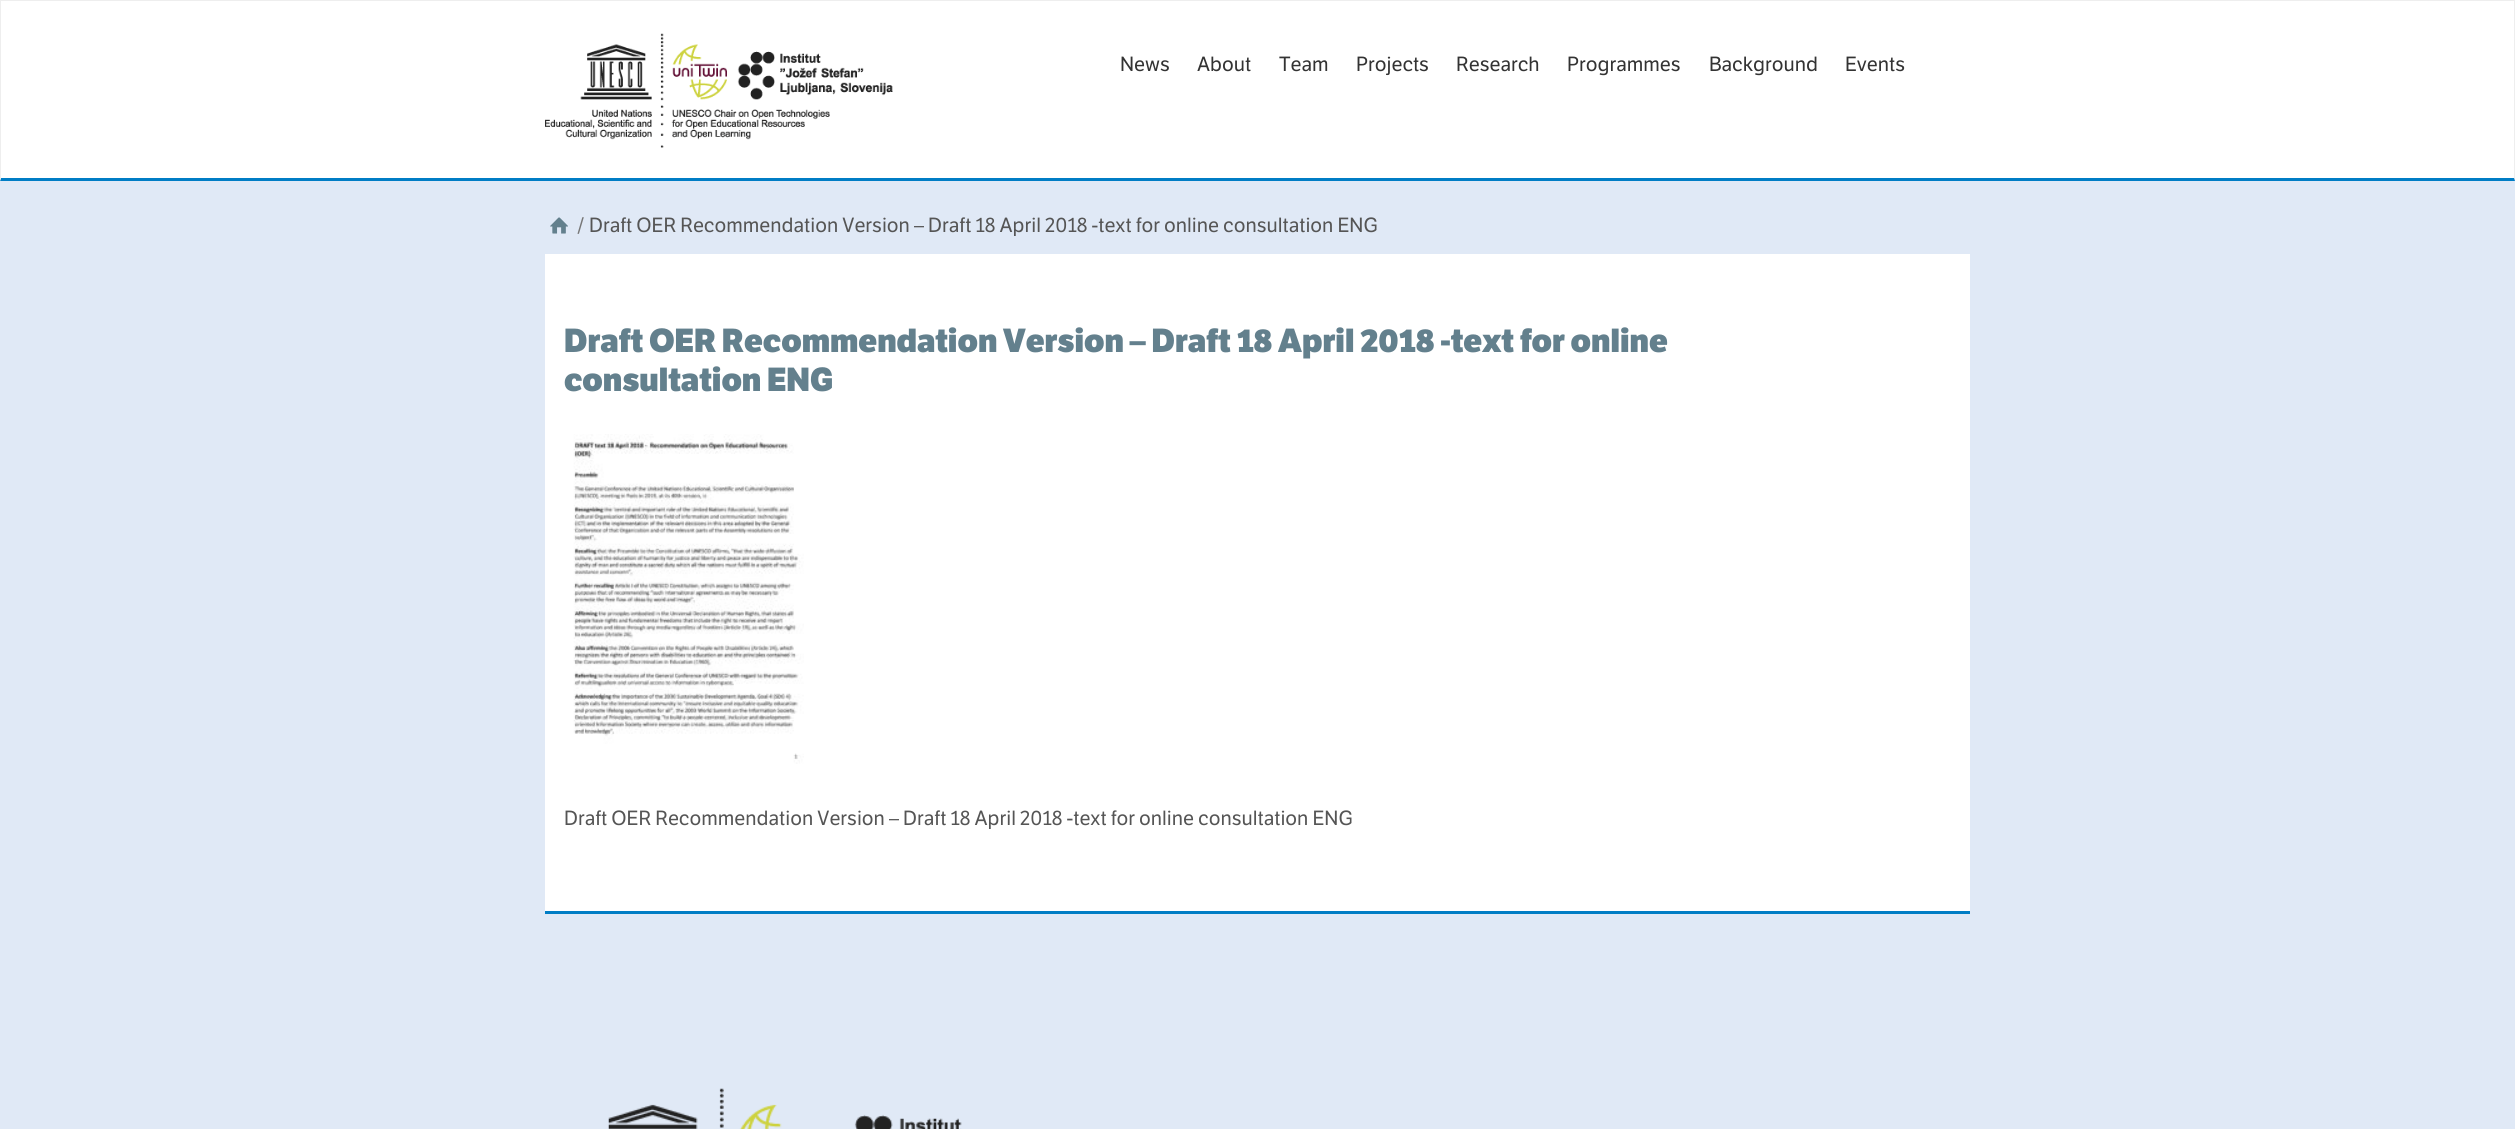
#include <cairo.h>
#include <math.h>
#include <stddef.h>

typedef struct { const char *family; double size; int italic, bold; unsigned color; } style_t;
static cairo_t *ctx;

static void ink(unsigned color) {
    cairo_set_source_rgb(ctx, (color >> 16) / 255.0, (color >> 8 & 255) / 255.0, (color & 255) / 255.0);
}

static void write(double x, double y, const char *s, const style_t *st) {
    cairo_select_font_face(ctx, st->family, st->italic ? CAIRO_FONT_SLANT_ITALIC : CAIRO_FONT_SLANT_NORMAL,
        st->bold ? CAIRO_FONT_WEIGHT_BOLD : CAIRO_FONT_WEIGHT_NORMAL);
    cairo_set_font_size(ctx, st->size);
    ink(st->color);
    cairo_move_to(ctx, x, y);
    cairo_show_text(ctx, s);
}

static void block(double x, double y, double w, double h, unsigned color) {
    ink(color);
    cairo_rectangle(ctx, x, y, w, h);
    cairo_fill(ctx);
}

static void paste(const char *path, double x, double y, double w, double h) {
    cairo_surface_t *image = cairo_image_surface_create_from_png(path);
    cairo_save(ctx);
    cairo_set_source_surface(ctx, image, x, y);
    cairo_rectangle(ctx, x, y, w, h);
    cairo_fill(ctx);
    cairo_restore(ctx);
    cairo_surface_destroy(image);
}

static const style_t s1 = {"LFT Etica", 20, 0, 0, 0x333333};
static const style_t s2 = {"LFT Etica", 20, 0, 0, 0x777777};
static const style_t s3 = {"LFT Etica", 20, 0, 0, 0x555555};
static const style_t s4 = {"LFT Etica ExtraBold", 32.5, 0, 0, 0x63808d};

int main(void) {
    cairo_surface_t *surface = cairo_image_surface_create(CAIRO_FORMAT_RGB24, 2515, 1129);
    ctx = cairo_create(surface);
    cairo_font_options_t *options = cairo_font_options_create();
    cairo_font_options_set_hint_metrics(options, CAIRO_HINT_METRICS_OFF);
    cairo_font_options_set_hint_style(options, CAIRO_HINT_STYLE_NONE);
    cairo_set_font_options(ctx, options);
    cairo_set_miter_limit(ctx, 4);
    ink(0xe0e9f6);
    cairo_paint(ctx);
    block(1, 1, 2513, 177, 0xffffff);
    block(0, 0, 2515, 1, 0xeeeeee);
    cairo_new_path(ctx);
    cairo_move_to(ctx, 2515, 0);
    cairo_line_to(ctx, 2515, 181);
    cairo_line_to(ctx, 2514, 178);
    cairo_line_to(ctx, 2514, 1);
    cairo_close_path(ctx);
    cairo_fill(ctx);
    ink(0x007dc5);
    cairo_new_path(ctx);
    cairo_move_to(ctx, 2515, 181);
    cairo_line_to(ctx, 0, 181);
    cairo_line_to(ctx, 1, 178);
    cairo_line_to(ctx, 2514, 178);
    cairo_close_path(ctx);
    cairo_fill(ctx);
    ink(0xeeeeee);
    cairo_new_path(ctx);
    cairo_move_to(ctx, 0, 181);
    cairo_line_to(ctx, 0, 0);
    cairo_line_to(ctx, 1, 1);
    cairo_line_to(ctx, 1, 178);
    cairo_close_path(ctx);
    cairo_fill(ctx);
    paste("pic1.png", 545, 33, 348, 115);
    write(1120, 71, "News", &s1);
    write(1197, 71, "About", &s1);
    write(1279, 71, "Team", &s1);
    write(1356, 71, "Projects", &s1);
    write(1456, 71, "Research", &s1);
    write(1567, 71, "Programmes", &s1);
    write(1709, 71, "Background", &s1);
    write(1845, 71, "Events", &s1);
    paste("pic2.png", 550, 217, 18, 17);
    write(577, 232, "/", &s2);
    write(589, 232, "Draft OER Recommendation Version – Draft 18 April 2018 -text for online consultation ENG", &s3);
    block(545, 254, 1425, 657, 0xffffff);
    block(545, 911, 1425, 3, 0x007dc5);
    write(564, 352, "Draft OER Recommendation Version – Draft 18 April 2018 -text for online", &s4);
    write(564, 391, "consultation ENG", &s4);
    paste("pic3.png", 573, 434, 231, 330);
    write(564, 825, "Draft OER Recommendation Version – Draft 18 April 2018 -text for online consultation ENG", &s3);
    paste("pic4.png", 608, 1088, 354, 41);
    cairo_surface_write_to_png(surface, "screenshot.png");
    cairo_font_options_destroy(options);
    cairo_destroy(ctx);
    cairo_surface_destroy(surface);
    return 0;
}
